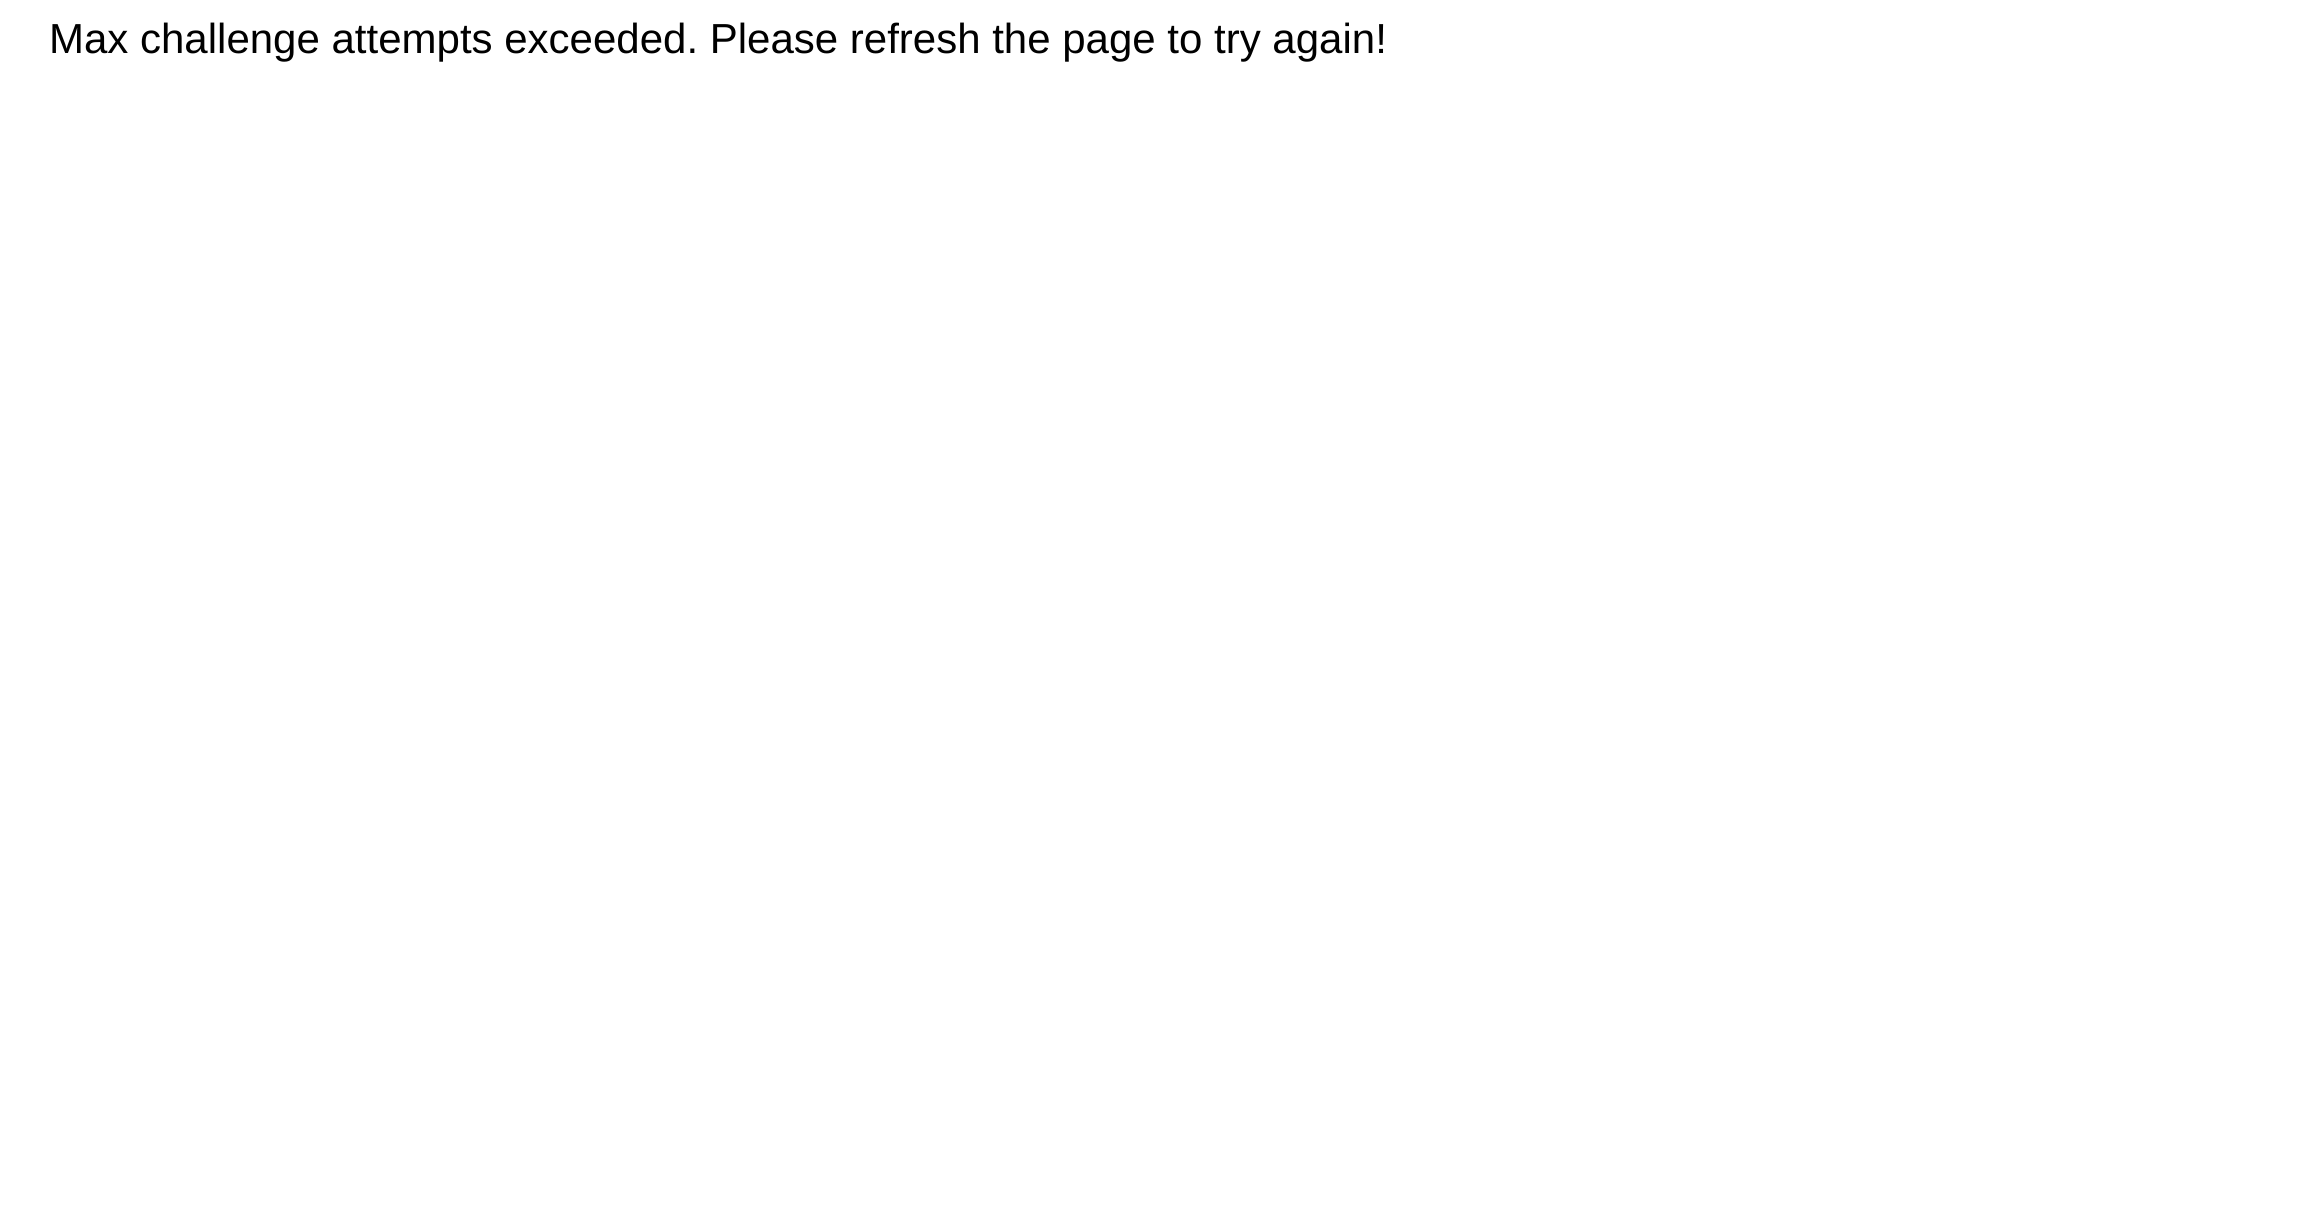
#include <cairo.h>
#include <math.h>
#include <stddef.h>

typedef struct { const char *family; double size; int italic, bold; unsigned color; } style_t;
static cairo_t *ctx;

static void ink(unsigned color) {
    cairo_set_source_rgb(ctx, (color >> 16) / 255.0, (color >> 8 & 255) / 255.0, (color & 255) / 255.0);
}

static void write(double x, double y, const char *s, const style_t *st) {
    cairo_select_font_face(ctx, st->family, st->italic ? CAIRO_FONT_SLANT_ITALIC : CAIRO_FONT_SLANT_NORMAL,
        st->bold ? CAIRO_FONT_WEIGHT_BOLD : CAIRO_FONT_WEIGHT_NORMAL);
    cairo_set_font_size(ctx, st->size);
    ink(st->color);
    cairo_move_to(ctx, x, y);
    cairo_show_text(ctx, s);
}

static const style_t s1 = {"Liberation Sans", 42, 0, 0, 0x000000};

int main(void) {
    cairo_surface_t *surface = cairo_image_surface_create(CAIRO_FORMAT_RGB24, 2301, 1226);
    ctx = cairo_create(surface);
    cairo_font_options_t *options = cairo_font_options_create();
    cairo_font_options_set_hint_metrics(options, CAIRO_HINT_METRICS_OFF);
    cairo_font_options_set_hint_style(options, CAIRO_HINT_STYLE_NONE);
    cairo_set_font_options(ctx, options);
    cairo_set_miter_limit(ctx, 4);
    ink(0xffffff);
    cairo_paint(ctx);
    write(49, 53, "Max challenge attempts exceeded. Please refresh the page to try again!", &s1);
    cairo_surface_write_to_png(surface, "screenshot.png");
    cairo_font_options_destroy(options);
    cairo_destroy(ctx);
    cairo_surface_destroy(surface);
    return 0;
}
